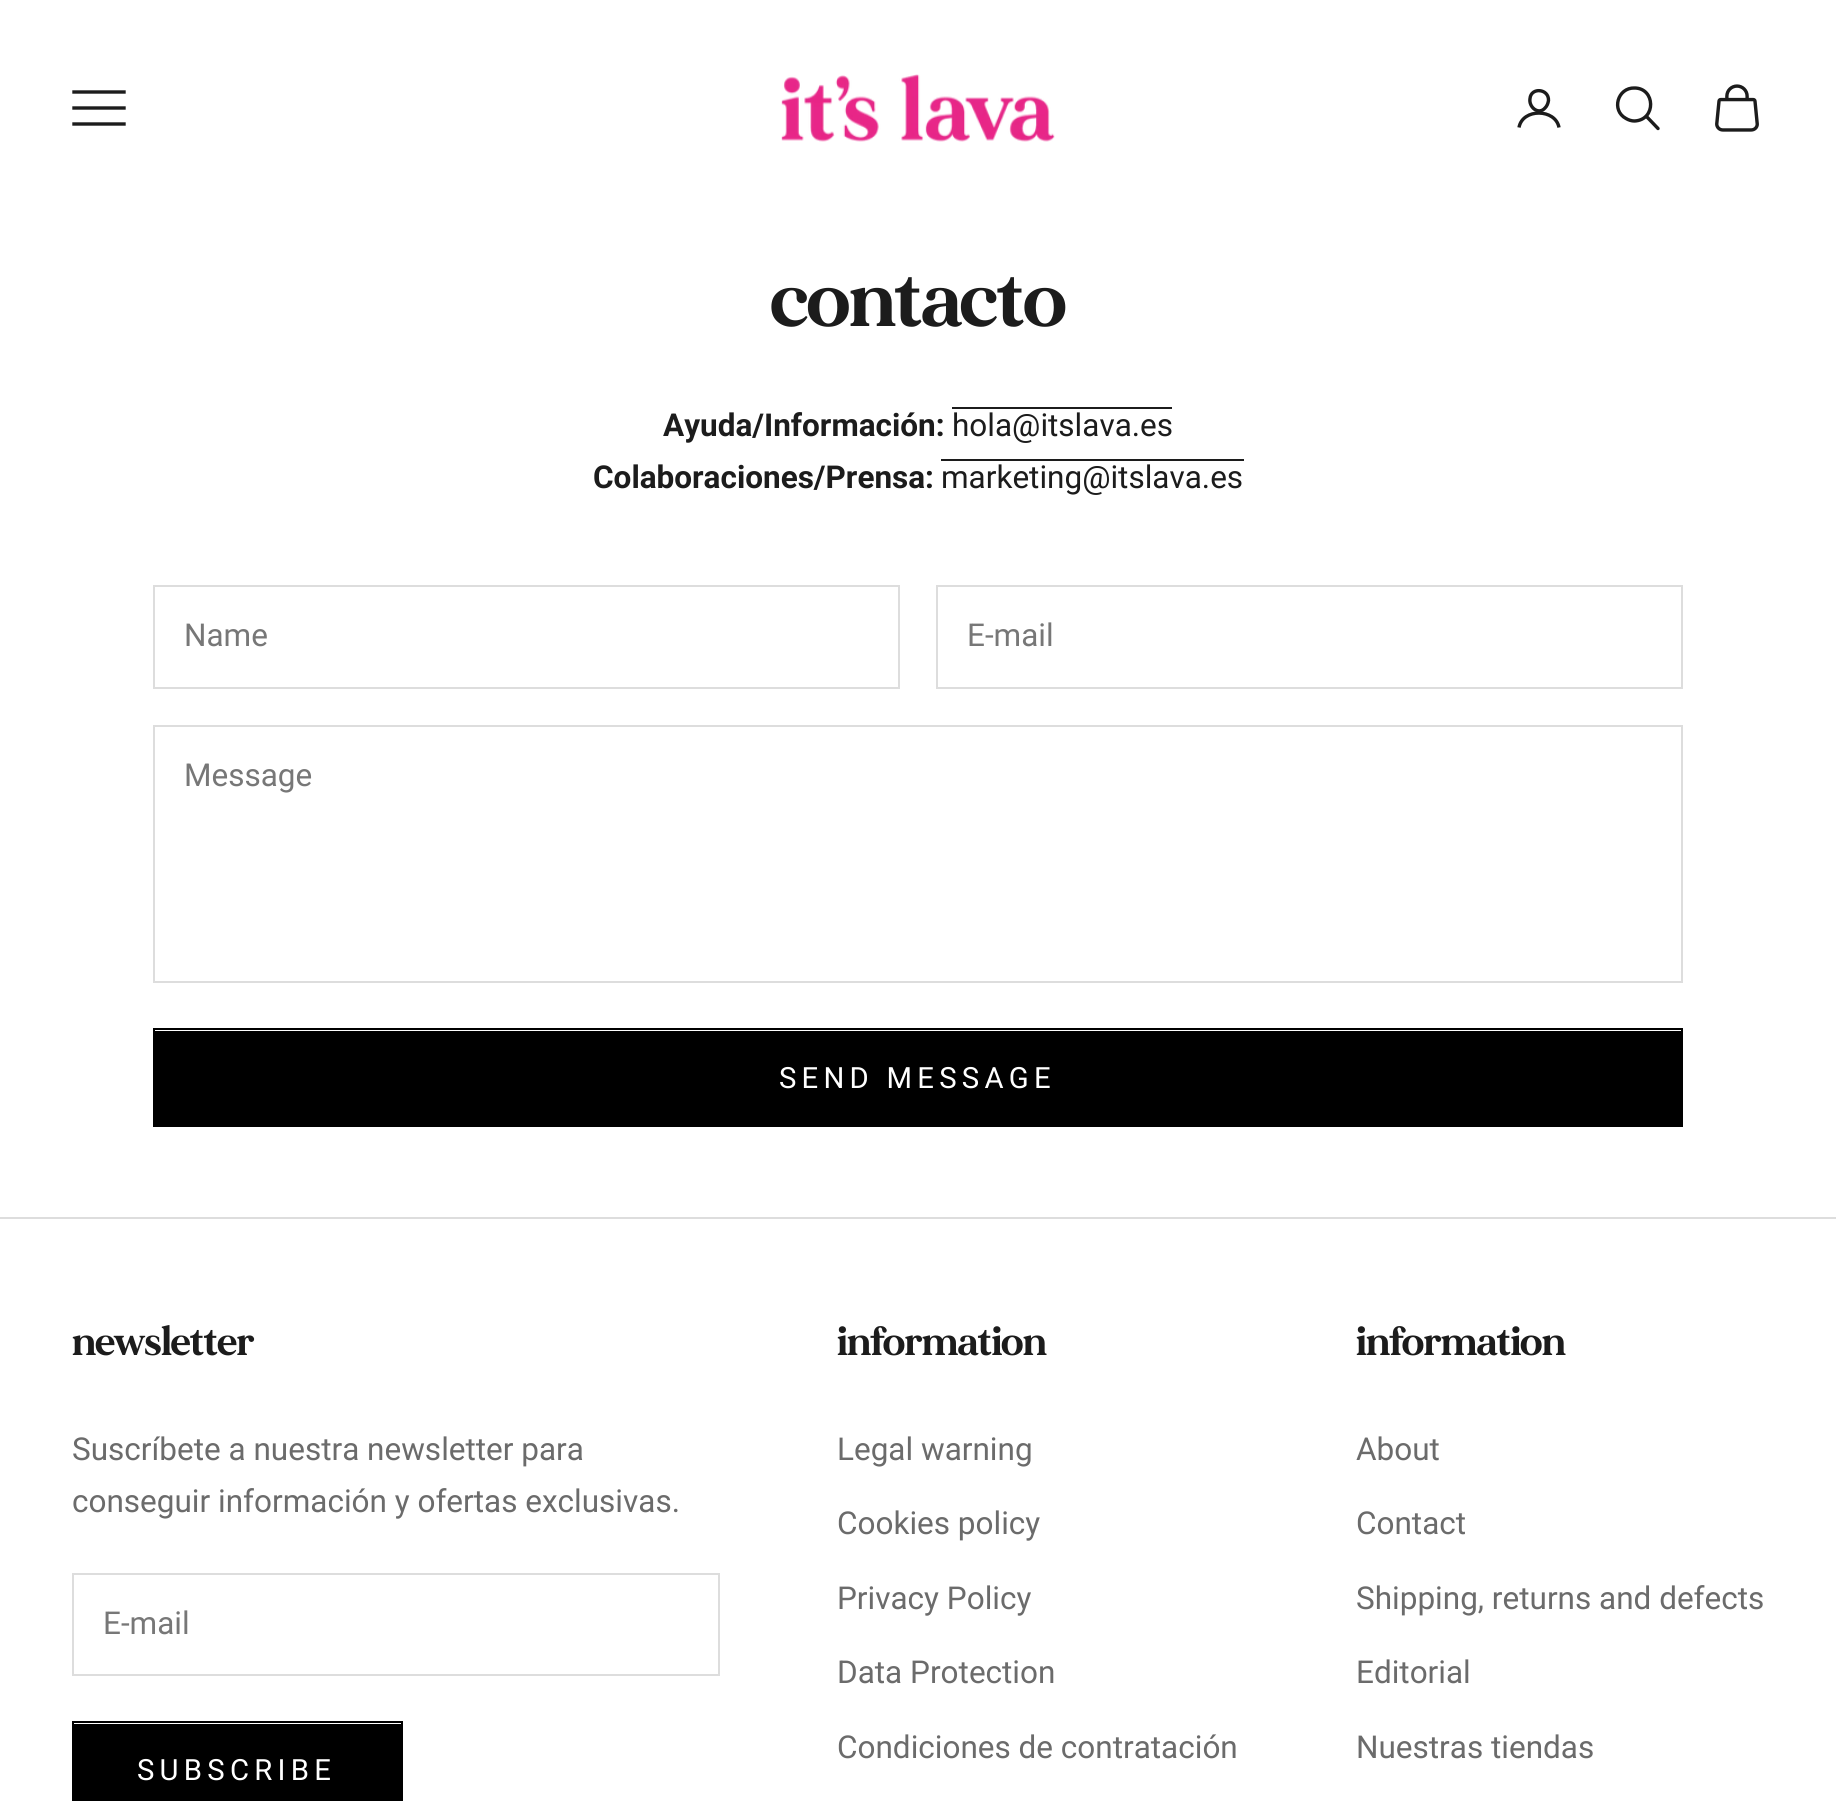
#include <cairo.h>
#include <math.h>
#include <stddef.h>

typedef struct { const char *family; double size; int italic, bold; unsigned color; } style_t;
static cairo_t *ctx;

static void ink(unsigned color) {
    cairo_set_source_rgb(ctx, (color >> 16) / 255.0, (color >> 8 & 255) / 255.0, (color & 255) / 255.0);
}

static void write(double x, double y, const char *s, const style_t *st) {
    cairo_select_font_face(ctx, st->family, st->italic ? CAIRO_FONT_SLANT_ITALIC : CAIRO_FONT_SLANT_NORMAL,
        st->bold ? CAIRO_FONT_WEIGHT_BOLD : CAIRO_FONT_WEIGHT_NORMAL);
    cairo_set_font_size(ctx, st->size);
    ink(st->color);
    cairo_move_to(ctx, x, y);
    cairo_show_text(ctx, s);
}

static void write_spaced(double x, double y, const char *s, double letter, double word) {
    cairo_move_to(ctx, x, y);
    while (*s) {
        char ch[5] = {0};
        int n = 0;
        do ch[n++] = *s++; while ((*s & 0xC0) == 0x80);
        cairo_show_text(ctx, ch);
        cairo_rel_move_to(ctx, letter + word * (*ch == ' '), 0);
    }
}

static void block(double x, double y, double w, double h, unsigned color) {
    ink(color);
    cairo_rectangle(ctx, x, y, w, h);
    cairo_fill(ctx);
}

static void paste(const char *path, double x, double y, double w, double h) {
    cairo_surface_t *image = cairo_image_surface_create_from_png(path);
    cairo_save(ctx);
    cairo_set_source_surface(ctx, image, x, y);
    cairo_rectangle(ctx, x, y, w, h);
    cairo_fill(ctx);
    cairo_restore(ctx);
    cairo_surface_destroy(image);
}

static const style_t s1 = {"Roboto", 31.5, 0, 1, 0x1c1c1c};
static const style_t s2 = {"Roboto", 31.5, 0, 0, 0x1c1c1c};
static const style_t s3 = {"Roboto", 31.5, 0, 0, 0x777777};
static const style_t s4 = {"Roboto", 31.5, 0, 0, 0x6b6b6b};

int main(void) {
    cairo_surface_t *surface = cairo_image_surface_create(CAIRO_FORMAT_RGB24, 1836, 1801);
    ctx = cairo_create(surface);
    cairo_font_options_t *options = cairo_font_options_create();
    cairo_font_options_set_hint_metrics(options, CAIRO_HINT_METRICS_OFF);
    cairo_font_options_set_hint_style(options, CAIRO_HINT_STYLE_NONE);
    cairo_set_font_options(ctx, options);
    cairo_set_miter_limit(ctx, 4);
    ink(0xffffff);
    cairo_paint(ctx);
    cairo_new_path(ctx);
    cairo_move_to(ctx, 74, 124);
    cairo_line_to(ctx, 124, 124);
    cairo_move_to(ctx, 74, 108);
    cairo_line_to(ctx, 124, 108);
    cairo_move_to(ctx, 74, 92);
    cairo_line_to(ctx, 124, 92);
    ink(0x1c1c1c);
    cairo_set_line_width(ctx, 3.4);
    cairo_set_line_cap(ctx, CAIRO_LINE_CAP_SQUARE);
    cairo_stroke(ctx);
    paste("pic1.png", 781, 74, 274, 68);
    cairo_new_path(ctx);
    cairo_move_to(ctx, 1548.5, 100.5);
    cairo_curve_to(ctx, 1548, 103.5, 1547, 106, 1545, 108);
    cairo_curve_to(ctx, 1538.5, 115.5, 1528.5, 107, 1530, 98.5);
    cairo_curve_to(ctx, 1531, 87, 1549, 88.5, 1548.5, 100.5);
    cairo_close_path(ctx);
    cairo_set_line_cap(ctx, CAIRO_LINE_CAP_ROUND);
    cairo_set_line_join(ctx, CAIRO_LINE_JOIN_ROUND);
    cairo_stroke(ctx);
    cairo_new_path(ctx);
    cairo_move_to(ctx, 1519, 127.5);
    cairo_curve_to(ctx, 1522.5, 108, 1555.5, 108.5, 1559, 127.5);
    cairo_set_line_cap(ctx, CAIRO_LINE_CAP_BUTT);
    cairo_set_line_join(ctx, CAIRO_LINE_JOIN_MITER);
    cairo_stroke(ctx);
    cairo_new_path(ctx);
    cairo_move_to(ctx, 1634.5, 88);
    cairo_curve_to(ctx, 1617.5, 87.5, 1611, 110.5, 1626, 118.5);
    cairo_curve_to(ctx, 1628.5, 120, 1631.5, 121, 1634.5, 121);
    cairo_curve_to(ctx, 1656.5, 120, 1655.5, 88, 1634.5, 88);
    cairo_close_path(ctx);
    cairo_stroke(ctx);
    cairo_new_path(ctx);
    cairo_move_to(ctx, 1646.5, 116.5);
    cairo_line_to(ctx, 1658, 128.5);
    cairo_set_line_cap(ctx, CAIRO_LINE_CAP_ROUND);
    cairo_stroke(ctx);
    paste("pic2.png", 1715, 84, 44, 48);
    cairo_select_font_face(ctx, "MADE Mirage", CAIRO_FONT_SLANT_NORMAL, CAIRO_FONT_WEIGHT_BOLD);
    cairo_set_font_size(ctx, 79);
    write_spaced(771, 326, "contacto", -1.5, 0);
    write(663, 436, "Ayuda/Información:", &s1);
    write(952, 436, "hola@itslava.es", &s2);
    block(952, 407, 220, 2, 0x1c1c1c);
    write(593, 488, "Colaboraciones/Prensa:", &s1);
    write(941, 488, "marketing@itslava.es", &s2);
    block(941, 459, 303, 2, 0x1c1c1c);
    cairo_rectangle(ctx, 154, 586, 745, 102);
    ink(0xdddddd);
    cairo_set_line_width(ctx, 2);
    cairo_set_line_cap(ctx, CAIRO_LINE_CAP_BUTT);
    cairo_stroke(ctx);
    write(184, 646, "Name", &s3);
    cairo_rectangle(ctx, 937, 586, 745, 102);
    ink(0xdddddd);
    cairo_stroke(ctx);
    write(967, 646, "E-mail", &s3);
    cairo_rectangle(ctx, 154, 726, 1528, 256);
    ink(0xdddddd);
    cairo_stroke(ctx);
    write(184, 786, "Message", &s3);
    block(155, 1031, 1526, 94, 0x000000);
    cairo_rectangle(ctx, 154, 1029, 1528, 97);
    cairo_stroke(ctx);
    cairo_set_font_size(ctx, 29.25);
    ink(0xffffff);
    write_spaced(779, 1088, "SEND MESSAGE", 5.25, 0);
    block(0, 1217, 1836, 2, 0xdddddd);
    cairo_select_font_face(ctx, "MADE Mirage", CAIRO_FONT_SLANT_NORMAL, CAIRO_FONT_WEIGHT_BOLD);
    cairo_set_font_size(ctx, 40.5);
    ink(0x1c1c1c);
    write_spaced(72, 1355, "newsletter", -0.75, 0);
    write(72, 1460, "Suscríbete a nuestra newsletter para", &s4);
    write(72, 1512, "conseguir información y ofertas exclusivas.", &s4);
    cairo_rectangle(ctx, 73, 1574, 646, 101);
    ink(0xdddddd);
    cairo_stroke(ctx);
    write(103, 1634, "E-mail", &s3);
    block(74, 1724, 327, 77, 0x000000);
    cairo_rectangle(ctx, 73, 1722, 329, 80);
    cairo_stroke(ctx);
    cairo_set_font_size(ctx, 29.25);
    ink(0xffffff);
    write_spaced(137, 1780, "SUBSCRIBE", 5.25, 0);
    cairo_select_font_face(ctx, "MADE Mirage", CAIRO_FONT_SLANT_NORMAL, CAIRO_FONT_WEIGHT_BOLD);
    cairo_set_font_size(ctx, 40.5);
    ink(0x1c1c1c);
    write_spaced(837, 1355, "information", -0.75, 0);
    write(837, 1460, "Legal warning", &s4);
    write(837, 1534, "Cookies policy", &s4);
    write(837, 1609, "Privacy Policy", &s4);
    write(837, 1683, "Data Protection", &s4);
    write(837, 1758, "Condiciones de contratación", &s4);
    cairo_select_font_face(ctx, "MADE Mirage", CAIRO_FONT_SLANT_NORMAL, CAIRO_FONT_WEIGHT_BOLD);
    cairo_set_font_size(ctx, 40.5);
    ink(0x1c1c1c);
    write_spaced(1356, 1355, "information", -0.75, 0);
    write(1356, 1460, "About", &s4);
    write(1356, 1534, "Contact", &s4);
    write(1356, 1609, "Shipping, returns and defects", &s4);
    write(1356, 1683, "Editorial", &s4);
    write(1356, 1758, "Nuestras tiendas", &s4);
    cairo_surface_write_to_png(surface, "screenshot.png");
    cairo_font_options_destroy(options);
    cairo_destroy(ctx);
    cairo_surface_destroy(surface);
    return 0;
}
